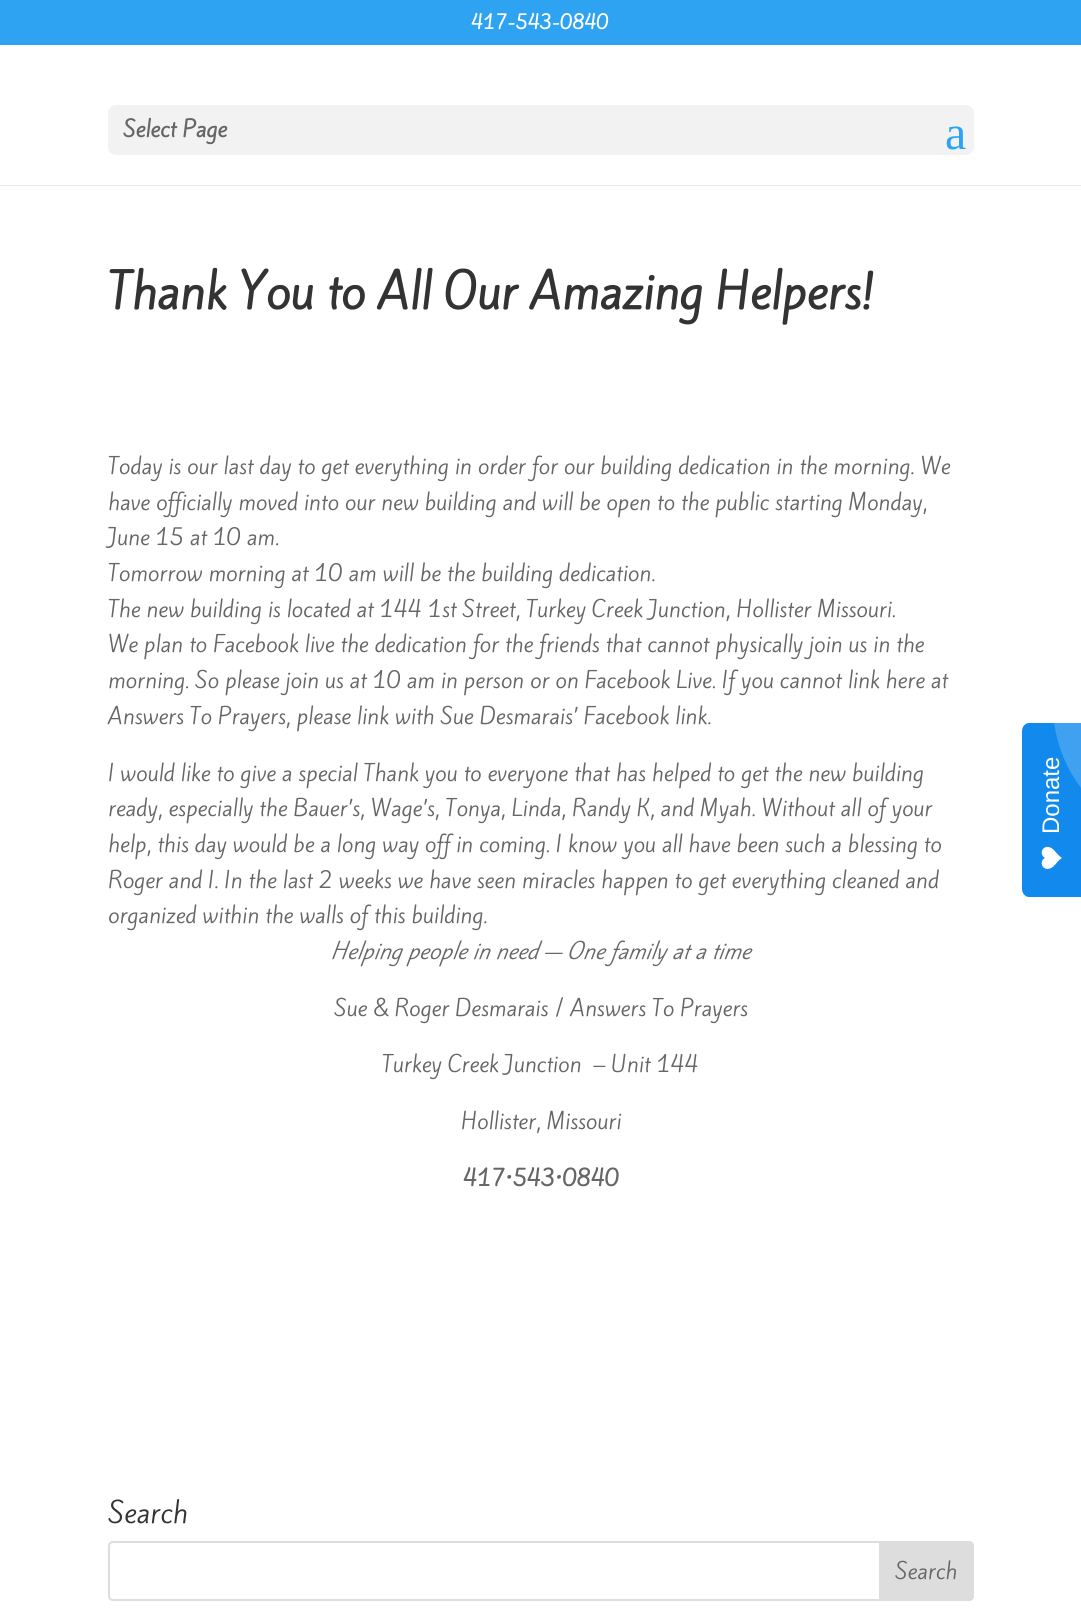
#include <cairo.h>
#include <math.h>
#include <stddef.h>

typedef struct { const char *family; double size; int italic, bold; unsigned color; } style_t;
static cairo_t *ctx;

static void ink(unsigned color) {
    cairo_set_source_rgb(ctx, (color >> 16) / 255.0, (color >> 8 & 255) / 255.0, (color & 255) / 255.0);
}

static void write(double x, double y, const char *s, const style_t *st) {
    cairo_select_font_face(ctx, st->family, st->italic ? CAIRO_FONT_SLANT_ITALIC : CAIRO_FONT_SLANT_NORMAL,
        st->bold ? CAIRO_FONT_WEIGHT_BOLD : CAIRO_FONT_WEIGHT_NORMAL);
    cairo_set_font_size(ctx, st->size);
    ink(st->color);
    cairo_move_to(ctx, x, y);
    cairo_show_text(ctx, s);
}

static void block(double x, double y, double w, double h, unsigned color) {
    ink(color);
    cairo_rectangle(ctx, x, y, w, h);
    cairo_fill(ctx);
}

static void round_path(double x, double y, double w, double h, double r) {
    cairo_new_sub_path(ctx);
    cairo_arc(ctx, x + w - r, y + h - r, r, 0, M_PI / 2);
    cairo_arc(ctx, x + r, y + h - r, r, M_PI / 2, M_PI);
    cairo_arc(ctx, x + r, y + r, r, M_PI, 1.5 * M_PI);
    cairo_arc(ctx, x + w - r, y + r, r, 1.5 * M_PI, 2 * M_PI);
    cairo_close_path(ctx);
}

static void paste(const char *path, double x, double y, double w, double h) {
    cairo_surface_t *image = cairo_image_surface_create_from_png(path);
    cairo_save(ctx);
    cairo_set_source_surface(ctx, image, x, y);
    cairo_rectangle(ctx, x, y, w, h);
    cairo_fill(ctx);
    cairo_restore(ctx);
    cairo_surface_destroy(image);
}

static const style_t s1 = {"Kite One", 18, 0, 1, 0xffffff};
static const style_t s2 = {"Kite One", 21, 0, 1, 0x666666};
static const style_t s3 = {"Liberation Serif", 48, 0, 0, 0x2ea3f2};
static const style_t s4 = {"Kite One", 45, 0, 1, 0x333333};
static const style_t s5 = {"Kite One", 21, 0, 0, 0x666666};
static const style_t s6 = {"Kite One", 21, 1, 0, 0x666666};
static const style_t s7 = {"Kite One", 27, 0, 0, 0x333333};
static const style_t s8 = {"Liberation Sans", 24, 0, 0, 0xffffff};

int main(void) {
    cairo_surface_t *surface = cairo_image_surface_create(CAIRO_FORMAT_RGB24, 1081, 1619);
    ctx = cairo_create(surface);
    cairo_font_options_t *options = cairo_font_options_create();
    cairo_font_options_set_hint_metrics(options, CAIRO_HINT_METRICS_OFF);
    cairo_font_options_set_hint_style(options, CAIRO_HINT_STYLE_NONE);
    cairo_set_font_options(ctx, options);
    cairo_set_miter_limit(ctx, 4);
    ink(0xffffff);
    cairo_paint(ctx);
    block(0, 0, 1081, 45, 0x2ea3f2);
    write(471, 29, "417-543-0840", &s1);
    ink(0xe6e6e6);
    cairo_new_path(ctx);
    cairo_move_to(ctx, 0, 184);
    cairo_line_to(ctx, 0, 186);
    cairo_line_to(ctx, 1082, 186);
    cairo_line_to(ctx, 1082, 47);
    cairo_line_to(ctx, 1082, 184);
    cairo_close_path(ctx);
    cairo_fill(ctx);
    block(0, 184, 1081, 1, 0xffffff);
    ink(0xf2f2f2);
    round_path(108, 105, 866, 50, 8);
    cairo_fill(ctx);
    write(123, 137, "Select Page", &s2);
    write(945, 149, "a", &s3);
    write(108, 309, "Thank You to All Our Amazing Helpers!", &s4);
    write(108, 474, "Today is our last day to get everything in order for our building dedication in the morning. We", &s5);
    write(108, 510, "have officially moved into our new building and will be open to the public starting Monday,", &s5);
    write(108, 545, "June 15 at 10 am.", &s5);
    write(108, 581, "Tomorrow morning at 10 am will be the building dedication.", &s5);
    write(108, 617, "The new building is located at 144 1st Street, Turkey Creek Junction, Hollister Missouri.", &s5);
    write(108, 652, "We plan to Facebook live the dedication for the friends that cannot physically join us in the", &s5);
    write(108, 688, "morning. So please join us at 10 am in person or on Facebook Live. If you cannot link here at", &s5);
    write(108, 724, "Answers To Prayers, please link with Sue Desmarais’ Facebook link.", &s5);
    write(108, 781, "I would like to give a special Thank you to everyone that has helped to get the new building", &s5);
    write(108, 816, "ready, especially the Bauer’s, Wage’s, Tonya, Linda, Randy K, and Myah. Without all of your", &s5);
    write(108, 852, "help, this day would be a long way off in coming. I know you all have been such a blessing to", &s5);
    write(108, 888, "Roger and I. In the last 2 weeks we have seen miracles happen to get everything cleaned and", &s5);
    write(108, 923, "organized within the walls of this building.", &s5);
    write(331, 959, "Helping people in need — One family at a time", &s6);
    write(334, 1016, "Sue & Roger Desmarais / Answers To Prayers", &s5);
    write(382, 1072, "Turkey Creek Junction  – Unit 144", &s5);
    write(461, 1129, "Hollister, Missouri", &s5);
    write(463, 1186, "417•543•0840", &s2);
    write(108, 1523, "Search", &s7);
    round_path(109, 1542, 864, 58, 4);
    ink(0xdddddd);
    cairo_stroke(ctx);
    cairo_new_path(ctx);
    cairo_move_to(ctx, 880, 1542);
    cairo_line_to(ctx, 969, 1542);
    cairo_curve_to(ctx, 971, 1542, 973, 1544, 973, 1546);
    cairo_line_to(ctx, 973, 1596);
    cairo_curve_to(ctx, 973, 1598, 971, 1600, 969, 1600);
    cairo_line_to(ctx, 880, 1600);
    cairo_close_path(ctx);
    cairo_fill_preserve(ctx);
    cairo_stroke(ctx);
    write(895, 1579, "Search", &s5);
    ink(0x128aed);
    cairo_new_path(ctx);
    cairo_move_to(ctx, 1022, 889);
    cairo_line_to(ctx, 1022, 731);
    cairo_curve_to(ctx, 1022, 727, 1025, 723, 1029, 723);
    cairo_line_to(ctx, 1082, 723);
    cairo_line_to(ctx, 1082, 897);
    cairo_line_to(ctx, 1029, 897);
    cairo_curve_to(ctx, 1025, 897, 1022, 893, 1022, 889);
    cairo_close_path(ctx);
    cairo_fill(ctx);
    cairo_save(ctx);
    cairo_translate(ctx, 1059, 834);
    cairo_rotate(ctx, -90 * M_PI / 180);
    write(0, 0, "Donate", &s8);
    cairo_restore(ctx);
    ink(0x41a1f1);
    cairo_new_path(ctx);
    cairo_move_to(ctx, 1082, 789);
    cairo_curve_to(ctx, 1067, 770, 1058, 748, 1054, 723);
    cairo_line_to(ctx, 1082, 723);
    cairo_close_path(ctx);
    cairo_fill(ctx);
    paste("pic1.png", 1041, 846, 21, 23);
    cairo_surface_write_to_png(surface, "screenshot.png");
    cairo_font_options_destroy(options);
    cairo_destroy(ctx);
    cairo_surface_destroy(surface);
    return 0;
}
